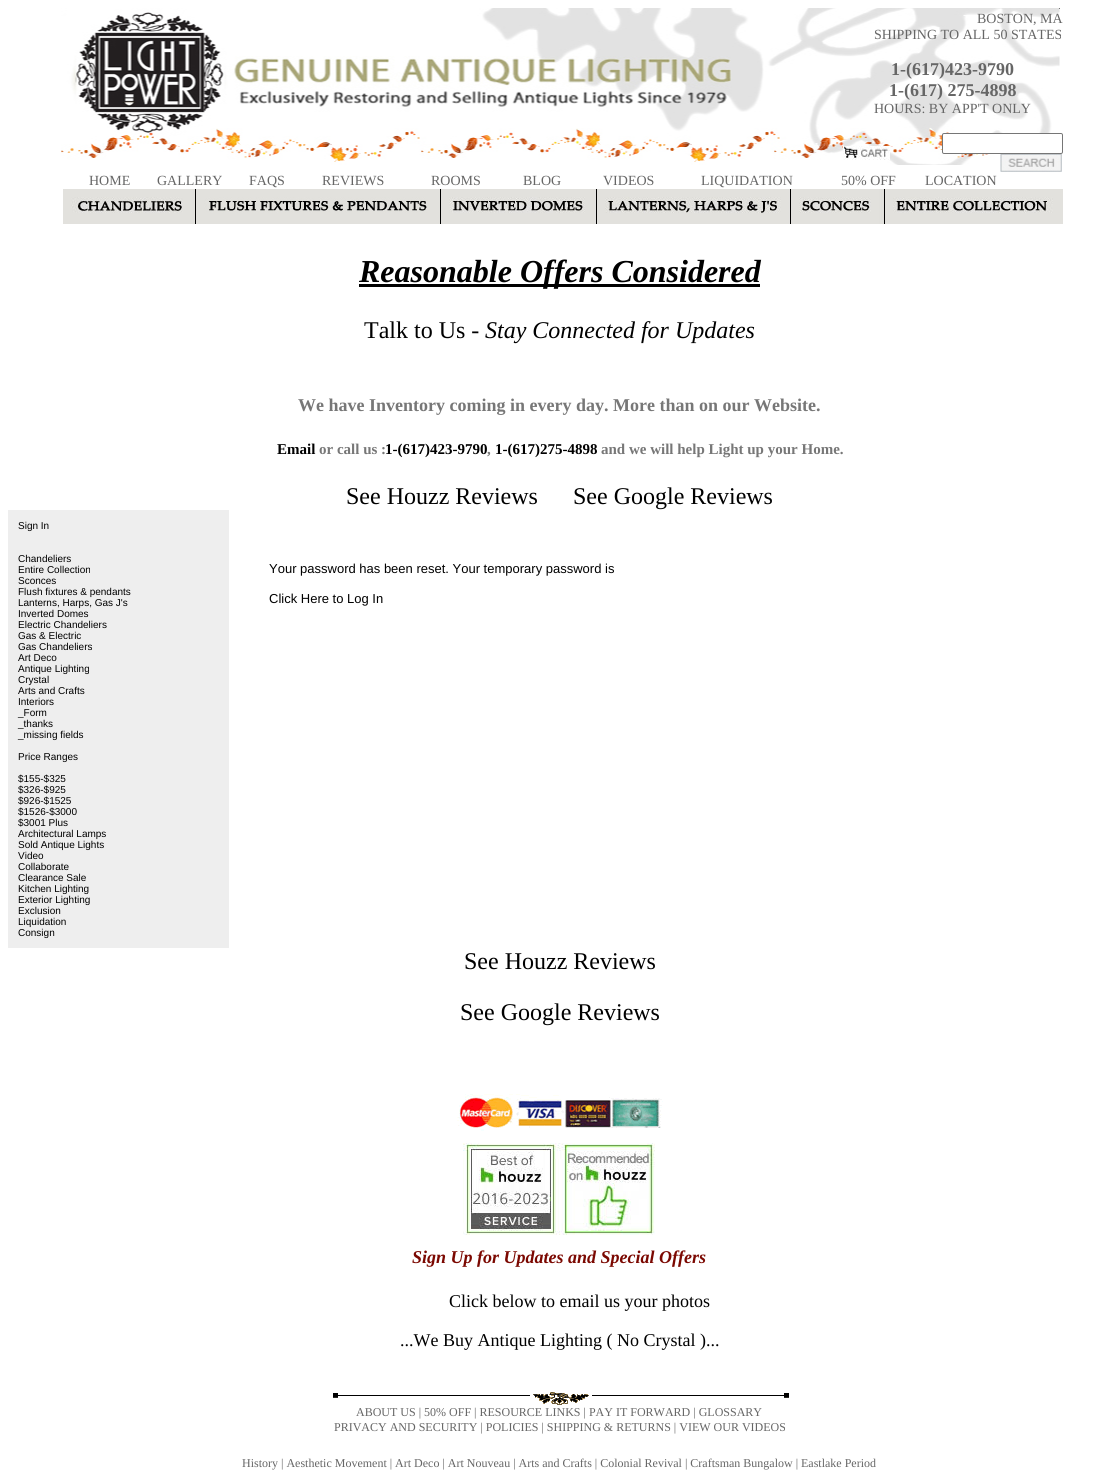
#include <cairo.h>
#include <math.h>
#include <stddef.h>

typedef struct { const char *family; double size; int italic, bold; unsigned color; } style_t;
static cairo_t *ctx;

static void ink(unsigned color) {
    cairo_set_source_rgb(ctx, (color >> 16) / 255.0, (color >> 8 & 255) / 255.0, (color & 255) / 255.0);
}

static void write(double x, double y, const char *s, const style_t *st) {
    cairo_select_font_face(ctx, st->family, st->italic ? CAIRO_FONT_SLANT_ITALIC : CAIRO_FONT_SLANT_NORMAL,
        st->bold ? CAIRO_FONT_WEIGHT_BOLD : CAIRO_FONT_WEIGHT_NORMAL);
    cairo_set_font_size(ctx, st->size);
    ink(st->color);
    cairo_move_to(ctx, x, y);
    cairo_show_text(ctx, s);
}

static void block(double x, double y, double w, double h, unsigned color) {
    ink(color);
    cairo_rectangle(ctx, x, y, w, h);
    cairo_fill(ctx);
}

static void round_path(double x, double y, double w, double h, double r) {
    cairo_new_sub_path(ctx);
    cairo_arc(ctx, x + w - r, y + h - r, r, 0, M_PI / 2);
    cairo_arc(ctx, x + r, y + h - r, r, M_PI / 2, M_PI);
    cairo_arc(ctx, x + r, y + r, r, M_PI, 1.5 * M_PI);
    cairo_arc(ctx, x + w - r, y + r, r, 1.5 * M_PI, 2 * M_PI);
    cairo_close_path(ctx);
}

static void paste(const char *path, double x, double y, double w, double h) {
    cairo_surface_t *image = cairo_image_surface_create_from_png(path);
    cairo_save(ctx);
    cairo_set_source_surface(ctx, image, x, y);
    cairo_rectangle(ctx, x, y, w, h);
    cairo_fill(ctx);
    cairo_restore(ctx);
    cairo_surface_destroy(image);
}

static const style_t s1 = {"Liberation Serif", 14, 0, 0, 0x666666};
static const style_t s2 = {"Liberation Serif", 18, 0, 1, 0x666666};
static const style_t s3 = {"Liberation Serif", 32, 1, 1, 0x000000};
static const style_t s4 = {"Liberation Serif", 24, 1, 0, 0x000000};
static const style_t s5 = {"Liberation Serif", 18, 0, 1, 0x777777};
static const style_t s6 = {"Liberation Serif", 24, 0, 0, 0x000000};
static const style_t s7 = {"Liberation Serif", 15, 0, 1, 0x000000};
static const style_t s8 = {"Liberation Serif", 15, 0, 1, 0x777777};
static const style_t s9 = {"Liberation Sans", 10, 0, 0, 0x000000};
static const style_t s10 = {"Liberation Sans", 13, 0, 0, 0x000000};
static const style_t s11 = {"Liberation Serif", 18, 1, 1, 0x7b0801};
static const style_t s12 = {"Liberation Serif", 18, 0, 0, 0x000000};
static const style_t s13 = {"Liberation Serif", 12, 0, 0, 0x666666};

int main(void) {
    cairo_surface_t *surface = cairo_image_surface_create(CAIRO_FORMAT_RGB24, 1119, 1479);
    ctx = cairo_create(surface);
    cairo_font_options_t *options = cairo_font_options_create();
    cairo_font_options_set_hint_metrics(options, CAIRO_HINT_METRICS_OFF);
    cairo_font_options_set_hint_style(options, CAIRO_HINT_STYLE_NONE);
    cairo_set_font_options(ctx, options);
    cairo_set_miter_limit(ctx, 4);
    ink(0xffffff);
    cairo_paint(ctx);
    paste("pic1.png", 61, 8, 999, 157);
    write(977, 23, "BOSTON, MA", &s1);
    write(874, 39, "SHIPPING TO ALL 50 STATES", &s1);
    write(891, 75, "1-(617)423-9790", &s2);
    write(889, 96, "1-(617) 275-4898", &s2);
    write(874, 113, "HOURS: BY APP'T ONLY", &s1);
    paste("pic2.png", 843, 146, 47, 14);
    ink(0xffffff);
    round_path(942.5, 133.5, 120, 20, 1.5);
    cairo_fill_preserve(ctx);
    ink(0x767676);
    cairo_set_line_width(ctx, 1);
    cairo_stroke(ctx);
    paste("pic3.png", 1000, 154, 62, 18);
    write(89, 185, "HOME", &s1);
    write(157, 185, "GALLERY", &s1);
    write(249, 185, "FAQS", &s1);
    write(322, 185, "REVIEWS", &s1);
    write(431, 185, "ROOMS", &s1);
    write(523, 185, "BLOG", &s1);
    write(603, 185, "VIDEOS", &s1);
    write(701, 185, "LIQUIDATION", &s1);
    write(841, 185, "50% OFF", &s1);
    write(925, 185, "LOCATION", &s1);
    paste("pic4.png", 885, 189, 178, 8);
    paste("pic5.png", 63, 189, 133, 35);
    paste("pic6.png", 196, 189, 245, 35);
    paste("pic7.png", 441, 189, 156, 35);
    paste("pic8.png", 597, 189, 194, 35);
    paste("pic9.png", 791, 189, 94, 35);
    paste("pic10.png", 885, 197, 178, 27);
    block(359, 284, 401, 3, 0x000000);
    write(359, 282, "Reasonable Offers Considered", &s3);
    write(485, 338, "Stay Connected for Updates", &s4);
    write(298, 411, "We have Inventory coming in every day. More than on our Website.", &s5);
    write(364, 338, "Talk to Us -", &s6);
    write(277, 454, "Email", &s7);
    write(319, 454, "or call us :", &s8);
    write(385, 454, "1-(617)423-9790", &s7);
    write(487, 454, ",", &s8);
    write(495, 454, "1-(617)275-4898", &s7);
    write(601, 454, "and we will help Light up your Home.", &s8);
    write(346, 504, "See Houzz Reviews", &s6);
    write(573, 504, "See Google Reviews", &s6);
    block(8, 510, 221, 438, 0xeeeeee);
    write(18, 529, "Sign In", &s9);
    write(18, 562, "Chandeliers", &s9);
    write(18, 573, "Entire Collection", &s9);
    write(18, 584, "Sconces", &s9);
    write(18, 595, "Flush fixtures & pendants", &s9);
    write(18, 606, "Lanterns, Harps, Gas J's", &s9);
    write(18, 617, "Inverted Domes", &s9);
    write(18, 628, "Electric Chandeliers", &s9);
    write(18, 639, "Gas & Electric", &s9);
    write(18, 650, "Gas Chandeliers", &s9);
    write(18, 661, "Art Deco", &s9);
    write(18, 672, "Antique Lighting", &s9);
    write(18, 683, "Crystal", &s9);
    write(18, 694, "Arts and Crafts", &s9);
    write(18, 705, "Interiors", &s9);
    write(18, 716, "_Form", &s9);
    write(18, 727, "_thanks", &s9);
    write(18, 738, "_missing fields", &s9);
    write(18, 760, "Price Ranges", &s9);
    write(18, 782, "$155-$325", &s9);
    write(18, 793, "$326-$925", &s9);
    write(18, 804, "$926-$1525", &s9);
    write(18, 815, "$1526-$3000", &s9);
    write(18, 826, "$3001 Plus", &s9);
    write(18, 837, "Architectural Lamps", &s9);
    write(18, 848, "Sold Antique Lights", &s9);
    write(18, 859, "Video", &s9);
    write(18, 870, "Collaborate", &s9);
    write(18, 881, "Clearance Sale", &s9);
    write(18, 892, "Kitchen Lighting", &s9);
    write(18, 903, "Exterior Lighting", &s9);
    write(18, 914, "Exclusion", &s9);
    write(18, 925, "Liquidation", &s9);
    write(18, 936, "Consign", &s9);
    write(269, 573, "Your password has been reset. Your temporary password is", &s10);
    write(269, 603, "Click Here to Log In", &s10);
    write(464, 969, "See Houzz Reviews", &s6);
    write(460, 1020, "See Google Reviews", &s6);
    paste("pic11.png", 457, 1094, 206, 37);
    paste("pic12.png", 463, 1143, 192, 92);
    write(412, 1263, "Sign Up for Updates and Special Offers", &s11);
    write(449, 1307, "Click below to email us your photos", &s12);
    write(400, 1346, "...We Buy Antique Lighting ( No Crystal )...", &s12);
    paste("pic13.png", 333, 1392, 456, 13);
    write(356, 1416, "ABOUT US | 50% OFF | RESOURCE LINKS | PAY IT FORWARD | GLOSSARY", &s13);
    write(334, 1431, "PRIVACY AND SECURITY | POLICIES | SHIPPING & RETURNS | VIEW OUR VIDEOS", &s13);
    write(242, 1467, "History | Aesthetic Movement | Art Deco | Art Nouveau | Arts and Crafts | Colonial Revival | Craftsman Bungalow | Eastlake Period", &s13);
    cairo_surface_write_to_png(surface, "screenshot.png");
    cairo_font_options_destroy(options);
    cairo_destroy(ctx);
    cairo_surface_destroy(surface);
    return 0;
}
